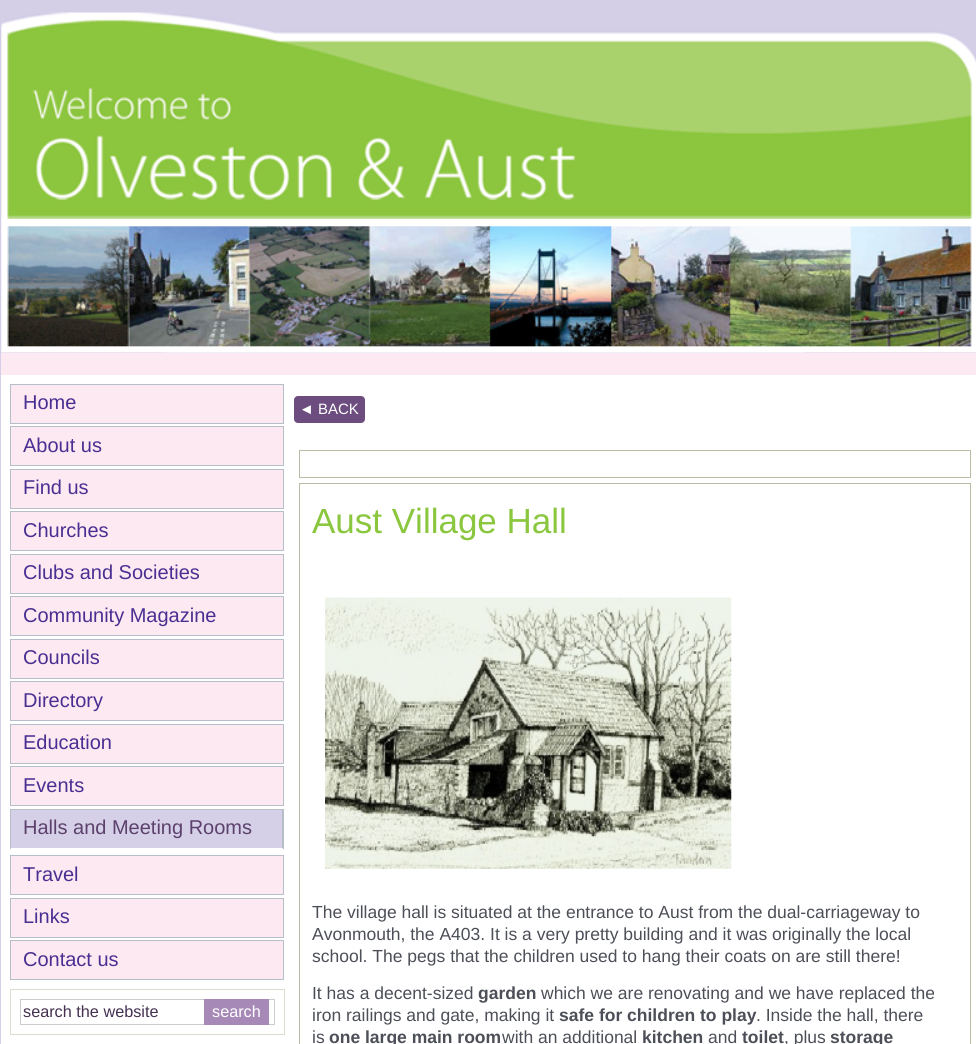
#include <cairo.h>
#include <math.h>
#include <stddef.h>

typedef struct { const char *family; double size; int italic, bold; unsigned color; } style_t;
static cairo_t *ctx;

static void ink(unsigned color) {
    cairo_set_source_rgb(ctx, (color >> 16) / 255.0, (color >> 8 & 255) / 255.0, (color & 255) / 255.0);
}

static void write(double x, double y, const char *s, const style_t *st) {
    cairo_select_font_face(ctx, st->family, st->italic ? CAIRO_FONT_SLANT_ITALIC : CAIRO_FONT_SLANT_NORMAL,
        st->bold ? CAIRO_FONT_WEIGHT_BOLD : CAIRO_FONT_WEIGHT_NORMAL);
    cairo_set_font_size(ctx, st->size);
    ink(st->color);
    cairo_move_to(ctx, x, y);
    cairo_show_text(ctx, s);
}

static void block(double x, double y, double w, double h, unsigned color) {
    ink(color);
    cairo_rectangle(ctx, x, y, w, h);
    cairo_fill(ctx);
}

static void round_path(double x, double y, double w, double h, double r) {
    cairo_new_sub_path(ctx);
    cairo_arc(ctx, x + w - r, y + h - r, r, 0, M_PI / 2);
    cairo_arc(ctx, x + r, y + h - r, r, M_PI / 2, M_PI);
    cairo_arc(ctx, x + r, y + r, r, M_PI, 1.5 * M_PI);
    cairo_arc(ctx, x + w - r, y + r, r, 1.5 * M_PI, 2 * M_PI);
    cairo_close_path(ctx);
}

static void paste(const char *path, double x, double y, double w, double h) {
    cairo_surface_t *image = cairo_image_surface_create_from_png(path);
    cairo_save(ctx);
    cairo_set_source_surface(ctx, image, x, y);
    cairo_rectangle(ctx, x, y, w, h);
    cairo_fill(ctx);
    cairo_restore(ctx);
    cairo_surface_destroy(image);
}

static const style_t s1 = {"Liberation Sans", 20, 0, 0, 0x492f92};
static const style_t s2 = {"Liberation Sans", 20, 0, 0, 0x5c416c};
static const style_t s3 = {"Liberation Sans", 16.25, 0, 0, 0x443050};
static const style_t s4 = {"Liberation Sans", 16.25, 0, 0, 0xffffff};
static const style_t s5 = {"Liberation Sans", 15, 0, 0, 0xffffff};
static const style_t s6 = {"Liberation Sans", 35, 0, 0, 0x8bc63f};
static const style_t s7 = {"Liberation Sans", 17.5, 0, 0, 0x4c4f57};
static const style_t s8 = {"Liberation Sans", 17.5, 0, 1, 0x4c4f57};

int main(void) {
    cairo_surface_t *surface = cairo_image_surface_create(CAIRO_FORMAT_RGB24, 976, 1044);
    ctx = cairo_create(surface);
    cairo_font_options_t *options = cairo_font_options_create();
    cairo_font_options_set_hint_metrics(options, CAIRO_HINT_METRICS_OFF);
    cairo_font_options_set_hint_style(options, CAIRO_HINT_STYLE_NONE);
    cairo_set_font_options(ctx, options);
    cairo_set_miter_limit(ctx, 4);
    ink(0xd4cee7);
    cairo_paint(ctx);
    paste("pic1.png", 1, 12, 975, 341);
    block(1, 375, 975, 669, 0xffffff);
    paste("pic2.png", 165, 352, 639, 1);
    block(1, 353, 975, 22, 0xfde9f2);
    cairo_rectangle(ctx, 10.5, 384.5, 273, 39);
    cairo_fill_preserve(ctx);
    ink(0xb6bfc9);
    cairo_set_line_width(ctx, 1);
    cairo_stroke(ctx);
    write(23, 409, "Home", &s1);
    ink(0xfde9f2);
    cairo_rectangle(ctx, 10.5, 426.5, 273, 39);
    cairo_fill_preserve(ctx);
    ink(0xb6bfc9);
    cairo_stroke(ctx);
    write(23, 452, "About us", &s1);
    ink(0xfde9f2);
    cairo_rectangle(ctx, 10.5, 469.5, 273, 39);
    cairo_fill_preserve(ctx);
    ink(0xb6bfc9);
    cairo_stroke(ctx);
    write(23, 494, "Find us", &s1);
    ink(0xfde9f2);
    cairo_rectangle(ctx, 10.5, 511.5, 273, 39);
    cairo_fill_preserve(ctx);
    ink(0xb6bfc9);
    cairo_stroke(ctx);
    write(23, 537, "Churches", &s1);
    ink(0xfde9f2);
    cairo_rectangle(ctx, 10.5, 554.5, 273, 39);
    cairo_fill_preserve(ctx);
    ink(0xb6bfc9);
    cairo_stroke(ctx);
    write(23, 579, "Clubs and Societies", &s1);
    ink(0xfde9f2);
    cairo_rectangle(ctx, 10.5, 596.5, 273, 39);
    cairo_fill_preserve(ctx);
    ink(0xb6bfc9);
    cairo_stroke(ctx);
    write(23, 622, "Community Magazine", &s1);
    ink(0xfde9f2);
    cairo_rectangle(ctx, 10.5, 639.5, 273, 39);
    cairo_fill_preserve(ctx);
    ink(0xb6bfc9);
    cairo_stroke(ctx);
    write(23, 664, "Councils", &s1);
    ink(0xfde9f2);
    cairo_rectangle(ctx, 10.5, 681.5, 273, 39);
    cairo_fill_preserve(ctx);
    ink(0xb6bfc9);
    cairo_stroke(ctx);
    write(23, 707, "Directory", &s1);
    ink(0xfde9f2);
    cairo_rectangle(ctx, 10.5, 724.5, 273, 39);
    cairo_fill_preserve(ctx);
    ink(0xb6bfc9);
    cairo_stroke(ctx);
    write(23, 749, "Education", &s1);
    ink(0xfde9f2);
    cairo_rectangle(ctx, 10.5, 766.5, 273, 39);
    cairo_fill_preserve(ctx);
    ink(0xb6bfc9);
    cairo_stroke(ctx);
    write(23, 792, "Events", &s1);
    block(11, 810, 271, 38, 0xd5cfe7);
    block(10, 809, 274, 1, 0xb6bfc9);
    cairo_new_path(ctx);
    cairo_move_to(ctx, 284, 809);
    cairo_line_to(ctx, 284, 850);
    cairo_line_to(ctx, 282, 848);
    cairo_line_to(ctx, 282, 810);
    cairo_close_path(ctx);
    cairo_fill(ctx);
    ink(0xffffff);
    cairo_new_path(ctx);
    cairo_move_to(ctx, 284, 850);
    cairo_line_to(ctx, 10, 850);
    cairo_line_to(ctx, 11, 848);
    cairo_line_to(ctx, 282, 848);
    cairo_close_path(ctx);
    cairo_fill(ctx);
    ink(0xb6bfc9);
    cairo_new_path(ctx);
    cairo_move_to(ctx, 10, 850);
    cairo_line_to(ctx, 10, 809);
    cairo_line_to(ctx, 11, 810);
    cairo_line_to(ctx, 11, 848);
    cairo_close_path(ctx);
    cairo_fill(ctx);
    write(23, 834, "Halls and Meeting Rooms", &s2);
    ink(0xfde9f2);
    cairo_rectangle(ctx, 10.5, 855.5, 273, 39);
    cairo_fill_preserve(ctx);
    ink(0xb6bfc9);
    cairo_stroke(ctx);
    write(23, 881, "Travel", &s1);
    ink(0xfde9f2);
    cairo_rectangle(ctx, 10.5, 898.5, 273, 39);
    cairo_fill_preserve(ctx);
    ink(0xb6bfc9);
    cairo_stroke(ctx);
    write(23, 923, "Links", &s1);
    ink(0xfde9f2);
    cairo_rectangle(ctx, 10.5, 940.5, 273, 39);
    cairo_fill_preserve(ctx);
    ink(0xb6bfc9);
    cairo_stroke(ctx);
    write(23, 966, "Contact us", &s1);
    cairo_rectangle(ctx, 10.5, 989.5, 274, 45);
    ink(0xd9ddd0);
    cairo_stroke(ctx);
    cairo_rectangle(ctx, 20.5, 999.5, 254, 25);
    ink(0xcccccc);
    cairo_stroke(ctx);
    write(23, 1017, "search the website", &s3);
    block(204, 999, 65, 26, 0xa789b8);
    write(212, 1017, "search", &s4);
    ink(0x6d4d80);
    round_path(294, 396, 71, 27, 4);
    cairo_fill(ctx);
    write(299, 414, "◄ BACK", &s5);
    cairo_rectangle(ctx, 299.5, 450.5, 671, 27);
    ink(0xb5bda3);
    cairo_stroke(ctx);
    cairo_rectangle(ctx, 299.5, 483.5, 671, 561);
    cairo_stroke(ctx);
    write(312, 533, "Aust Village Hall", &s6);
    paste("pic3.png", 325, 597, 407, 272);
    write(312, 918, "The village hall is situated at the entrance to Aust from the dual-carriageway to", &s7);
    write(312, 940, "Avonmouth, the A403. It is a very pretty building and it was originally the local", &s7);
    write(312, 962, "school. The pegs that the children used to hang their coats on are still there!", &s7);
    write(312, 999, "It has a decent-sized", &s7);
    write(478, 999, "garden", &s8);
    write(541, 999, "which we are renovating and we have replaced the", &s7);
    write(312, 1021, "iron railings and gate, making it", &s7);
    write(559, 1021, "safe for children to play", &s8);
    write(756, 1021, ". Inside the hall, there", &s7);
    write(312, 1043, "is", &s7);
    write(329, 1043, "one large main room", &s8);
    write(502, 1043, "with an additional", &s7);
    write(642, 1043, "kitchen", &s8);
    write(708, 1043, "and", &s7);
    write(742, 1043, "toilet", &s8);
    write(784, 1043, ", plus", &s7);
    write(830, 1043, "storage", &s8);
    cairo_surface_write_to_png(surface, "screenshot.png");
    cairo_font_options_destroy(options);
    cairo_destroy(ctx);
    cairo_surface_destroy(surface);
    return 0;
}
